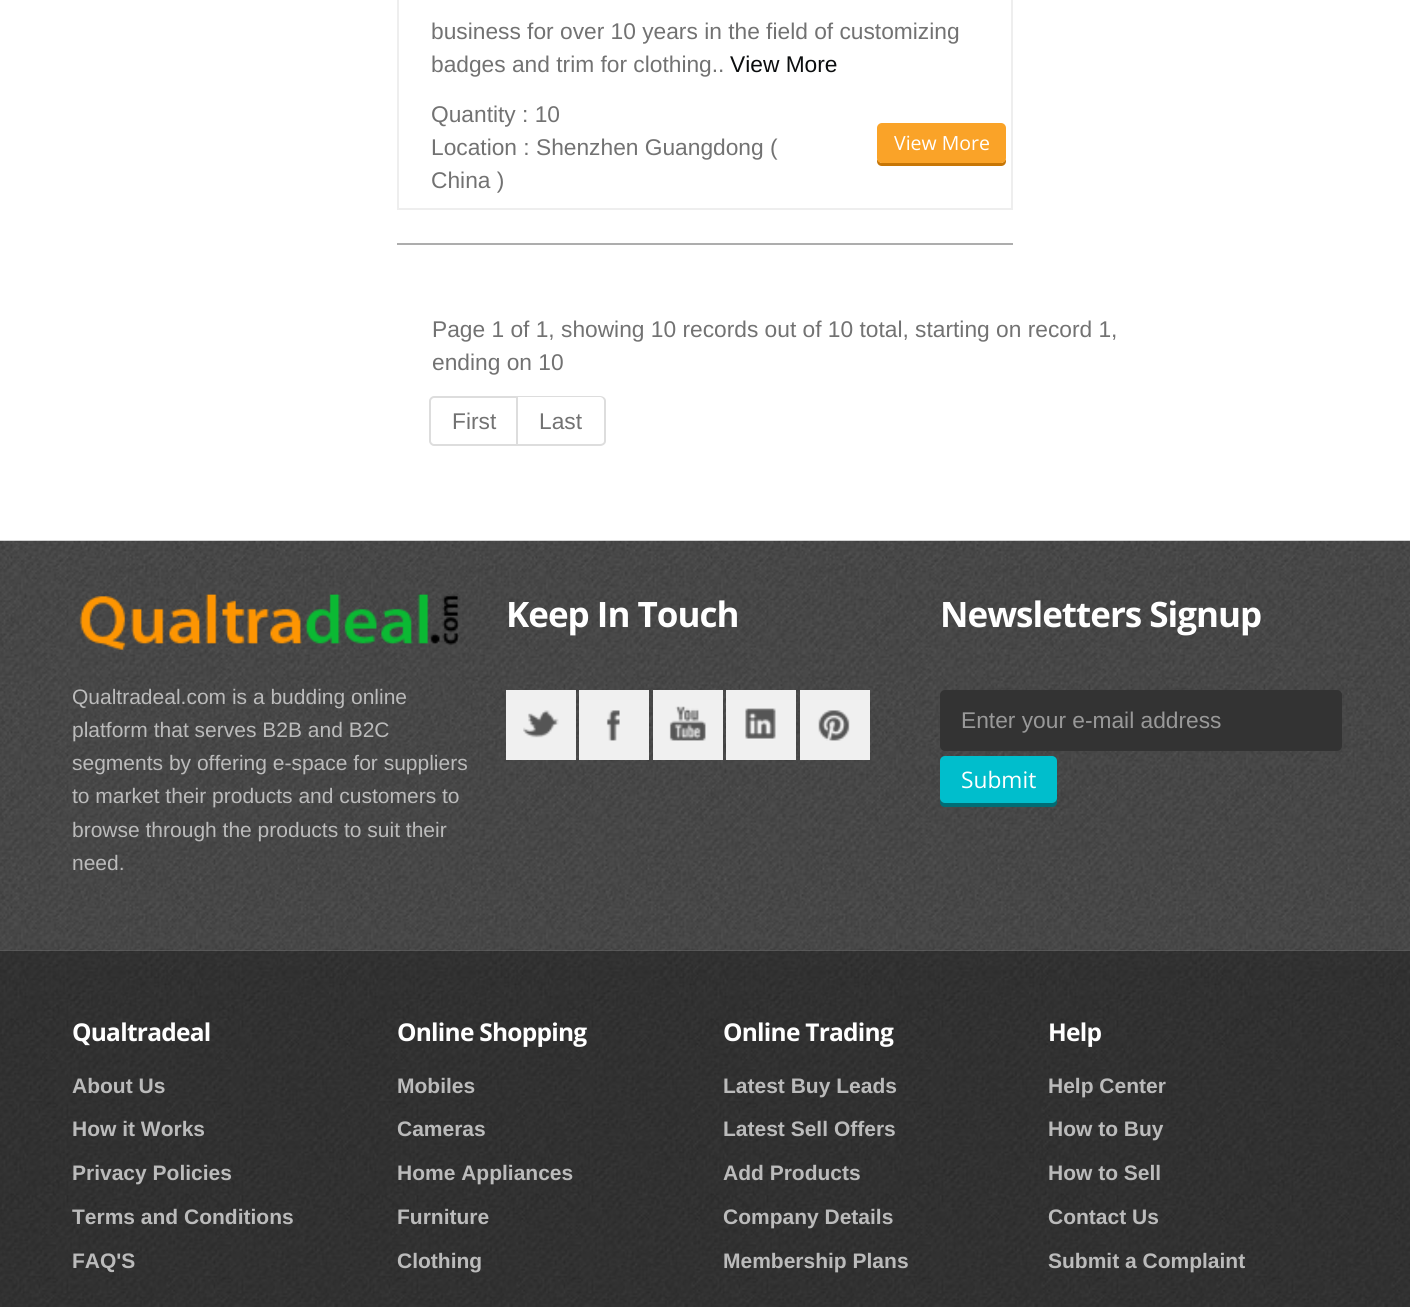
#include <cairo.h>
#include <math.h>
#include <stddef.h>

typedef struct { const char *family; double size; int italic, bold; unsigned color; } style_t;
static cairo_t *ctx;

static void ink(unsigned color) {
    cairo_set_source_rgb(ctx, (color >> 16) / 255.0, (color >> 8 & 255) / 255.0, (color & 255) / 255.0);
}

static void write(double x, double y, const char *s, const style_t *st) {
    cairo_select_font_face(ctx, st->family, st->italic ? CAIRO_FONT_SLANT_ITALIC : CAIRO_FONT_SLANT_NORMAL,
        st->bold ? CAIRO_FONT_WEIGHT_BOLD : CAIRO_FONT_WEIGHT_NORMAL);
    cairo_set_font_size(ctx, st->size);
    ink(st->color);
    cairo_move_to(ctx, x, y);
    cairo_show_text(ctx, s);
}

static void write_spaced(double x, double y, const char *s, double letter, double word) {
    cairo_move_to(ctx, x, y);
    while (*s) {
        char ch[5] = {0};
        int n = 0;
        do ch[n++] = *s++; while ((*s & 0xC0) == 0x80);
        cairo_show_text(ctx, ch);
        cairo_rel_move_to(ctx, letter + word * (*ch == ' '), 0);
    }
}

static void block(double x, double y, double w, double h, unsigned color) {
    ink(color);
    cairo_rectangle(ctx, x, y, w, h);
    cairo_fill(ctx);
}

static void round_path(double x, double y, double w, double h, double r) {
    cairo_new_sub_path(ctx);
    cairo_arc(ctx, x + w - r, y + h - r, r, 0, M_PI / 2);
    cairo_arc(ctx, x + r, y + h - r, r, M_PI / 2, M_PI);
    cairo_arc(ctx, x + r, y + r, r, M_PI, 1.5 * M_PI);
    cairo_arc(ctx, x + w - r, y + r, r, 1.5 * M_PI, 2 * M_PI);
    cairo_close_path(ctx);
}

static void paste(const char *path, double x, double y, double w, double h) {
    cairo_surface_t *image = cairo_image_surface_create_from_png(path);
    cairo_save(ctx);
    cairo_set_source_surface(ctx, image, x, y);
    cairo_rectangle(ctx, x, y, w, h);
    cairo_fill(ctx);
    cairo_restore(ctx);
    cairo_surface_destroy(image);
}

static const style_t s1 = {"Liberation Sans", 22.75, 0, 0, 0x727272};
static const style_t s2 = {"Liberation Sans", 22.75, 0, 0, 0x0b0d0e};
static const style_t s3 = {"Open Sans", 19.5, 0, 0, 0xffffff};
static const style_t s4 = {"Liberation Sans", 21, 0, 0, 0xbbbbbb};
static const style_t s5 = {"Liberation Sans", 22.75, 0, 0, 0x999999};
static const style_t s6 = {"Open Sans", 22.75, 0, 0, 0xffffff};
static const style_t s7 = {"Liberation Sans", 21, 0, 1, 0xbbbbbb};

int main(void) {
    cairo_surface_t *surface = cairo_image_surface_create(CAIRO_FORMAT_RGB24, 1410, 1307);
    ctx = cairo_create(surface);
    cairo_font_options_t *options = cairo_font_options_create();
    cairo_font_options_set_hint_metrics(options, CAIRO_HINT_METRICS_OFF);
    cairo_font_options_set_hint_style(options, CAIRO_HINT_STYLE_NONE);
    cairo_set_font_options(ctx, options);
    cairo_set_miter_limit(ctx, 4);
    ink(0xffffff);
    cairo_paint(ctx);
    cairo_rectangle(ctx, 398, -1, 614, 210);
    ink(0xeeeeee);
    cairo_stroke(ctx);
    write(431, 39, "business for over 10 years in the field of customizing", &s1);
    write(431, 72, "badges and trim for clothing..", &s1);
    write(730, 72, "View More", &s2);
    write(431, 122, "Quantity : 10", &s1);
    write(431, 155, "Location : Shenzhen Guangdong (", &s1);
    write(431, 188, "China )", &s1);
    ink(0xc77605);
    cairo_new_path(ctx);
    cairo_move_to(ctx, 877, 159);
    cairo_line_to(ctx, 877, 161);
    cairo_curve_to(ctx, 877, 164, 879, 166, 882, 166);
    cairo_line_to(ctx, 1001, 166);
    cairo_curve_to(ctx, 1004, 166, 1006, 164, 1006, 161);
    cairo_line_to(ctx, 1006, 159);
    cairo_curve_to(ctx, 1005, 161, 1003, 163, 1001, 163);
    cairo_line_to(ctx, 882, 163);
    cairo_curve_to(ctx, 880, 163, 878, 161, 877, 159);
    cairo_close_path(ctx);
    cairo_fill(ctx);
    ink(0xfaa328);
    round_path(877, 123, 129, 40, 5);
    cairo_fill(ctx);
    write(894, 150, "View More", &s3);
    block(397, 243, 616, 2, 0xadadad);
    write(432, 337, "Page 1 of 1, showing 10 records out of 10 total, starting on record 1,", &s1);
    write(432, 370, "ending on 10", &s1);
    cairo_new_path(ctx);
    cairo_move_to(ctx, 434, 397);
    cairo_line_to(ctx, 517, 397);
    cairo_line_to(ctx, 517, 445);
    cairo_line_to(ctx, 434, 445);
    cairo_curve_to(ctx, 432, 445, 430, 443, 430, 441);
    cairo_line_to(ctx, 430, 401);
    cairo_curve_to(ctx, 430, 399, 432, 397, 434, 397);
    cairo_close_path(ctx);
    ink(0xdddddd);
    cairo_stroke(ctx);
    write(452, 429, "First", &s1);
    ink(0xdddddd);
    cairo_set_fill_rule(ctx, CAIRO_FILL_RULE_EVEN_ODD);
    cairo_new_path(ctx);
    cairo_move_to(ctx, 518, 396);
    cairo_line_to(ctx, 600, 396);
    cairo_curve_to(ctx, 603, 396, 606, 398, 606, 401);
    cairo_line_to(ctx, 606, 441);
    cairo_curve_to(ctx, 606, 444, 603, 446, 600, 446);
    cairo_line_to(ctx, 518, 446);
    cairo_close_path(ctx);
    cairo_move_to(ctx, 518, 397);
    cairo_line_to(ctx, 600, 397);
    cairo_curve_to(ctx, 602, 397, 604, 399, 604, 401);
    cairo_line_to(ctx, 604, 441);
    cairo_curve_to(ctx, 604, 443, 602, 444, 600, 444);
    cairo_line_to(ctx, 518, 444);
    cairo_close_path(ctx);
    cairo_fill(ctx);
    write(539, 429, "Last", &s1);
    paste("pic1.png", 0, 540, 1410, 411);
    paste("pic2.png", 79, 594, 380, 56);
    write(72, 704, "Qualtradeal.com is a budding online", &s4);
    write(72, 737, "platform that serves B2B and B2C", &s4);
    write(72, 770, "segments by offering e-space for suppliers", &s4);
    write(72, 803, "to market their products and customers to", &s4);
    write(72, 837, "browse through the products to suit their", &s4);
    write(72, 870, "need.", &s4);
    cairo_select_font_face(ctx, "Open Sans", CAIRO_FONT_SLANT_NORMAL, CAIRO_FONT_WEIGHT_BOLD);
    cairo_set_font_size(ctx, 35);
    ink(0xffffff);
    write_spaced(506, 627, "Keep In Touch", -1, 0);
    block(506, 690, 70, 70, 0xf0f0f0);
    paste("pic3.png", 523, 710, 36, 28);
    block(579, 690, 70, 70, 0xf0f0f0);
    paste("pic4.png", 606, 710, 14, 31);
    block(653, 690, 70, 70, 0xf0f0f0);
    paste("pic5.png", 669, 706, 37, 35);
    block(726, 690, 70, 70, 0xf0f0f0);
    paste("pic6.png", 745, 708, 31, 31);
    block(800, 690, 70, 70, 0xf0f0f0);
    paste("pic7.png", 818, 710, 32, 31);
    ink(0xffffff);
    write_spaced(940, 627, "Newsletters Signup", -1, 0);
    ink(0x333333);
    round_path(940, 690, 402, 61, 5);
    cairo_fill(ctx);
    write(961, 728, "Enter your e-mail address", &s5);
    ink(0x006d75);
    cairo_set_fill_rule(ctx, CAIRO_FILL_RULE_WINDING);
    cairo_new_path(ctx);
    cairo_move_to(ctx, 940, 800);
    cairo_line_to(ctx, 940, 802);
    cairo_curve_to(ctx, 940, 805, 942, 807, 945, 807);
    cairo_line_to(ctx, 1052, 807);
    cairo_curve_to(ctx, 1055, 807, 1057, 805, 1057, 802);
    cairo_line_to(ctx, 1057, 798);
    cairo_curve_to(ctx, 1057, 801, 1055, 803, 1052, 803);
    cairo_line_to(ctx, 945, 803);
    cairo_curve_to(ctx, 943, 803, 941, 802, 940, 800);
    cairo_close_path(ctx);
    cairo_fill(ctx);
    ink(0x00becc);
    round_path(940, 756, 117, 47, 5);
    cairo_fill(ctx);
    write(961, 788, "Submit", &s6);
    paste("pic8.png", 0, 950, 1410, 357);
    cairo_select_font_face(ctx, "Open Sans", CAIRO_FONT_SLANT_NORMAL, CAIRO_FONT_WEIGHT_BOLD);
    cairo_set_font_size(ctx, 24.5);
    write_spaced(72, 1041, "Qualtradeal", -0.75, 0);
    write(72, 1093, "About Us", &s7);
    write(72, 1136, "How it Works", &s7);
    write(72, 1180, "Privacy Policies", &s7);
    write(72, 1224, "Terms and Conditions", &s7);
    write(72, 1268, "FAQ'S", &s7);
    cairo_select_font_face(ctx, "Open Sans", CAIRO_FONT_SLANT_NORMAL, CAIRO_FONT_WEIGHT_BOLD);
    cairo_set_font_size(ctx, 24.5);
    ink(0xffffff);
    write_spaced(397, 1041, "Online Shopping", -0.75, 0);
    write(397, 1093, "Mobiles", &s7);
    write(397, 1136, "Cameras", &s7);
    write(397, 1180, "Home Appliances", &s7);
    write(397, 1224, "Furniture", &s7);
    write(397, 1268, "Clothing", &s7);
    cairo_select_font_face(ctx, "Open Sans", CAIRO_FONT_SLANT_NORMAL, CAIRO_FONT_WEIGHT_BOLD);
    cairo_set_font_size(ctx, 24.5);
    ink(0xffffff);
    write_spaced(723, 1041, "Online Trading", -0.75, 0);
    write(723, 1093, "Latest Buy Leads", &s7);
    write(723, 1136, "Latest Sell Offers", &s7);
    write(723, 1180, "Add Products", &s7);
    write(723, 1224, "Company Details", &s7);
    write(723, 1268, "Membership Plans", &s7);
    cairo_select_font_face(ctx, "Open Sans", CAIRO_FONT_SLANT_NORMAL, CAIRO_FONT_WEIGHT_BOLD);
    cairo_set_font_size(ctx, 24.5);
    ink(0xffffff);
    write_spaced(1048, 1041, "Help", -0.75, 0);
    write(1048, 1093, "Help Center", &s7);
    write(1048, 1136, "How to Buy", &s7);
    write(1048, 1180, "How to Sell", &s7);
    write(1048, 1224, "Contact Us", &s7);
    write(1048, 1268, "Submit a Complaint", &s7);
    cairo_surface_write_to_png(surface, "screenshot.png");
    cairo_font_options_destroy(options);
    cairo_destroy(ctx);
    cairo_surface_destroy(surface);
    return 0;
}
